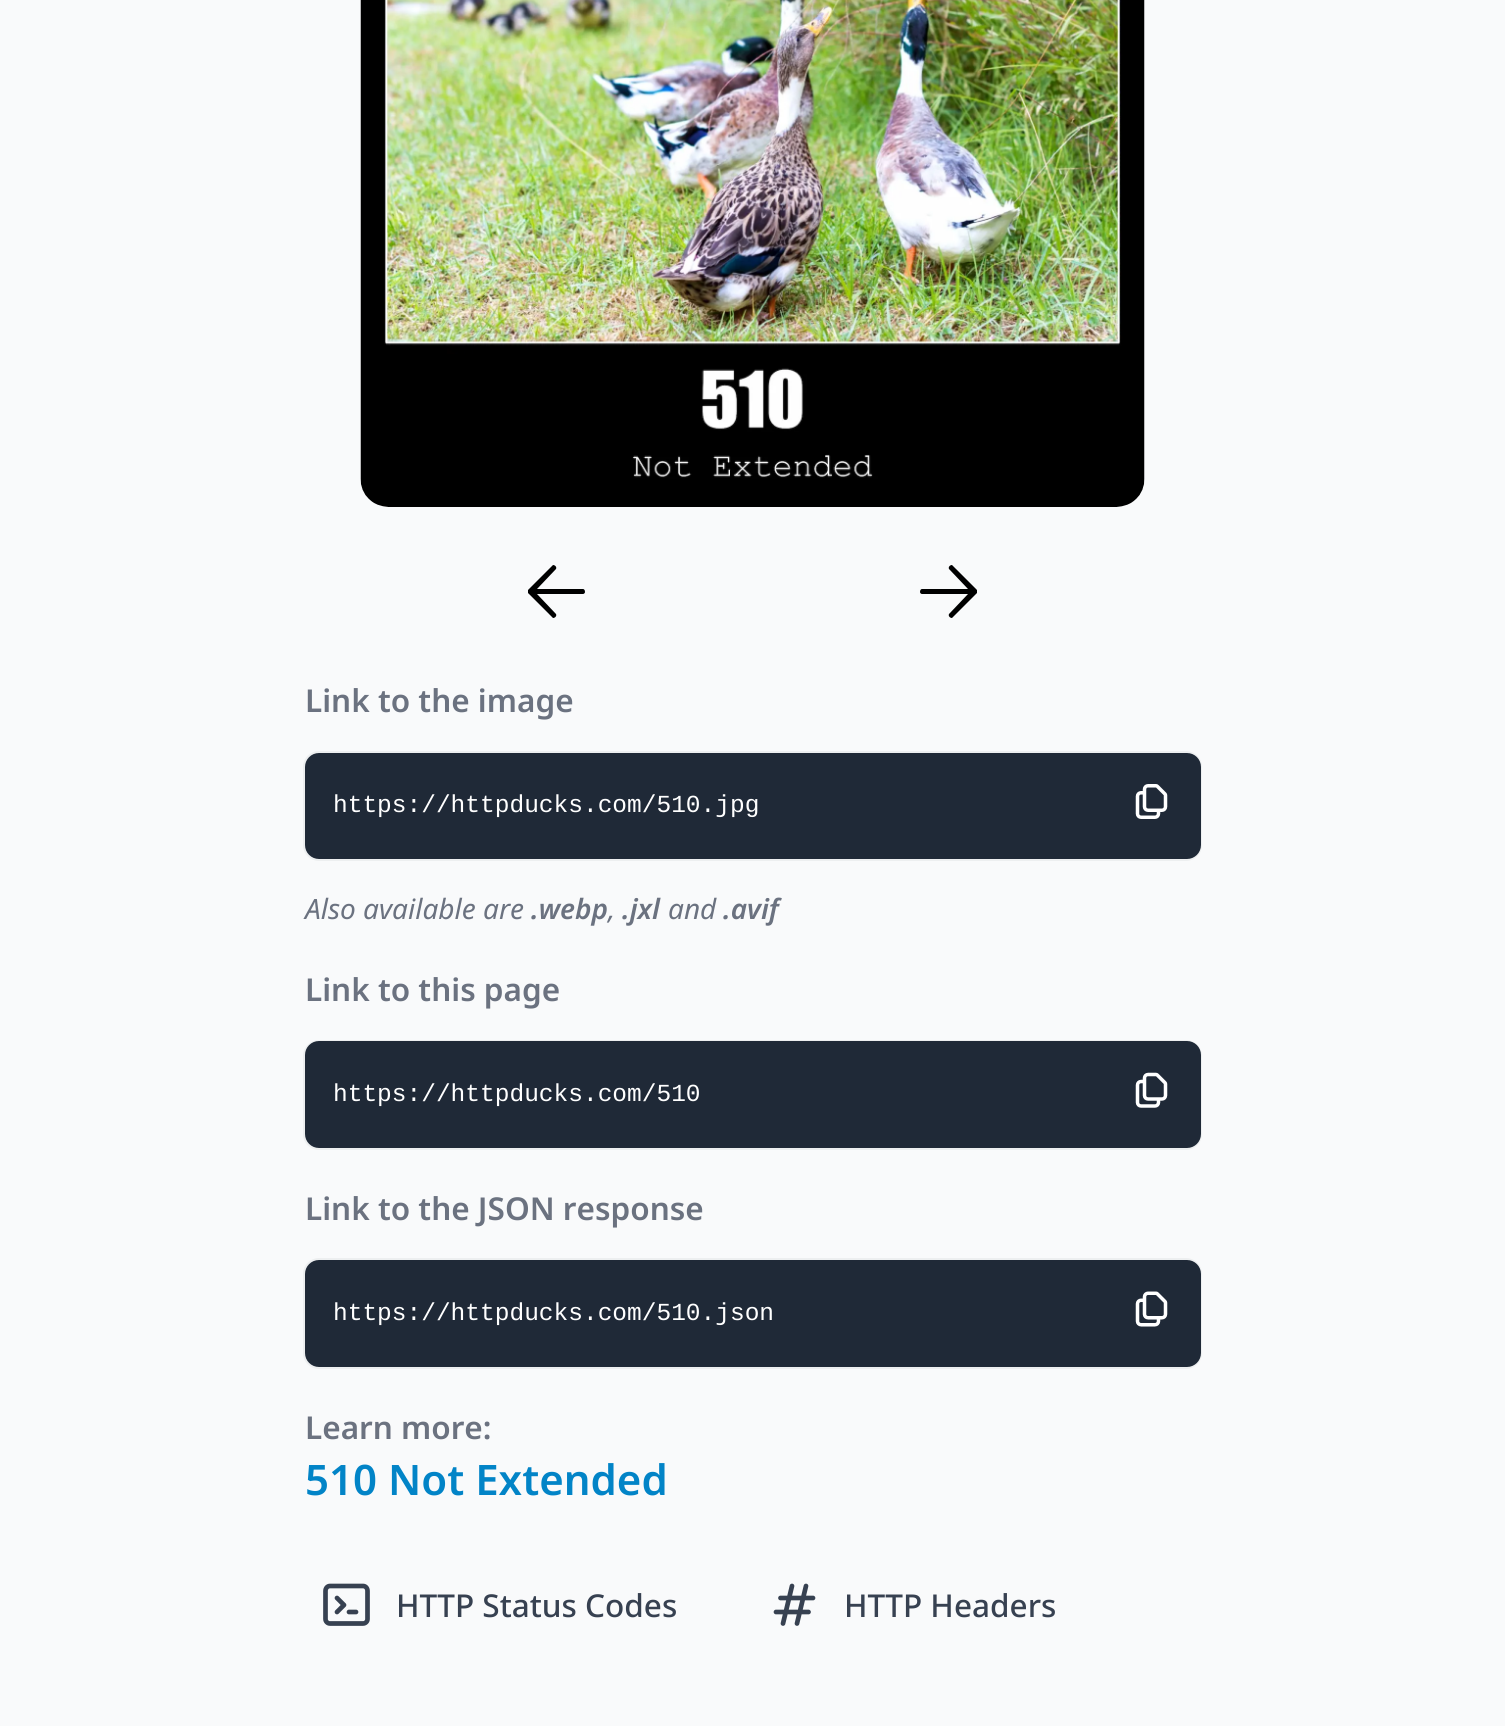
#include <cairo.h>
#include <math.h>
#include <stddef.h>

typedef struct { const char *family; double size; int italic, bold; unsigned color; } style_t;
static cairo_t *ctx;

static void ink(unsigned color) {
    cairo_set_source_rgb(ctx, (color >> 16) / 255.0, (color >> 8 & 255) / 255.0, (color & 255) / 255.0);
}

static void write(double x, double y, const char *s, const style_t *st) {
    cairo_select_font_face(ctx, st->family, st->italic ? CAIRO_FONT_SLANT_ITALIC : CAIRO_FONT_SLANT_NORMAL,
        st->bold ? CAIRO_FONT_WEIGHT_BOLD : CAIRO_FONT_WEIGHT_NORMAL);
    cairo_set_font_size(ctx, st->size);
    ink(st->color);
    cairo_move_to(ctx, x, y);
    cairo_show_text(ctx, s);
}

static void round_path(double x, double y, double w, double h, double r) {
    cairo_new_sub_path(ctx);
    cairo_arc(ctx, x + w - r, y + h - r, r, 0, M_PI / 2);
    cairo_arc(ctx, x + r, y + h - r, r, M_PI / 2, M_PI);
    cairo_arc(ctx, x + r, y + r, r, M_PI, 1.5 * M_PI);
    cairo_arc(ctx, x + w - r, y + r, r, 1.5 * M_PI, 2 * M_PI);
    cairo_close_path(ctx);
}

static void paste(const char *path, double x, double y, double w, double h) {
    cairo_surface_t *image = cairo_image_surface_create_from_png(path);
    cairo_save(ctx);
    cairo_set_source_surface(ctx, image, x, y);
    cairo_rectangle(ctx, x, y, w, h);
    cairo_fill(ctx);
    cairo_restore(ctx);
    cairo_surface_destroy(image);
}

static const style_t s1 = {"Noto Sans SemiBold", 31.5, 0, 0, 0x6b7280};
static const style_t s2 = {"Liberation Mono", 24.5, 0, 0, 0xffffff};
static const style_t s3 = {"Noto Sans", 28, 1, 0, 0x6b7280};
static const style_t s4 = {"Noto Sans SemiBold", 28, 1, 0, 0x6b7280};
static const style_t s5 = {"Noto Sans SemiBold", 42, 0, 0, 0x0284c7};
static const style_t s6 = {"Noto Sans Medium", 31.5, 0, 0, 0x374151};

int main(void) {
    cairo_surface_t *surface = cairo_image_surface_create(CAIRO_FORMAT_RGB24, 1505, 1726);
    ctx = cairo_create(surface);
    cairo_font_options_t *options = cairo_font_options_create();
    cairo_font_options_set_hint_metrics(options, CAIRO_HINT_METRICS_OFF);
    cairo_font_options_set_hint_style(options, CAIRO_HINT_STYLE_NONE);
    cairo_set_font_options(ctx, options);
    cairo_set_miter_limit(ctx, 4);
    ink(0xf9fafb);
    cairo_paint(ctx);
    paste("pic1.png", 360, 0, 785, 507);
    ink(0x000000);
    cairo_set_fill_rule(ctx, CAIRO_FILL_RULE_EVEN_ODD);
    cairo_new_path(ctx);
    cairo_move_to(ctx, 585, 592);
    cairo_curve_to(ctx, 585, 593, 584, 594, 583, 594);
    cairo_line_to(ctx, 537, 594);
    cairo_line_to(ctx, 556, 614);
    cairo_curve_to(ctx, 557, 616, 555, 618, 553, 618);
    cairo_line_to(ctx, 528, 593);
    cairo_line_to(ctx, 528, 592);
    cairo_line_to(ctx, 528, 590);
    cairo_line_to(ctx, 553, 565);
    cairo_curve_to(ctx, 555, 565, 557, 567, 556, 569);
    cairo_line_to(ctx, 537, 589);
    cairo_line_to(ctx, 583, 589);
    cairo_curve_to(ctx, 584, 589, 585, 590, 585, 592);
    cairo_close_path(ctx);
    cairo_fill(ctx);
    cairo_new_path(ctx);
    cairo_move_to(ctx, 920, 592);
    cairo_curve_to(ctx, 920, 590, 921, 589, 922, 589);
    cairo_line_to(ctx, 968, 589);
    cairo_line_to(ctx, 949, 569);
    cairo_curve_to(ctx, 948, 567, 950, 565, 952, 565);
    cairo_line_to(ctx, 977, 590);
    cairo_line_to(ctx, 977, 592);
    cairo_line_to(ctx, 977, 593);
    cairo_line_to(ctx, 952, 618);
    cairo_curve_to(ctx, 950, 618, 948, 616, 949, 614);
    cairo_line_to(ctx, 968, 594);
    cairo_line_to(ctx, 922, 594);
    cairo_curve_to(ctx, 921, 594, 920, 593, 920, 592);
    cairo_close_path(ctx);
    cairo_fill(ctx);
    write(305, 712, "Link to the image", &s1);
    round_path(304, 752, 897, 108, 15);
    ink(0xedeff0);
    cairo_stroke(ctx);
    ink(0x1f2937);
    round_path(305, 753, 896, 106, 14);
    cairo_fill(ctx);
    write(333, 812, "https://httpducks.com/510.jpg", &s2);
    paste("pic2.png", 1135, 784, 33, 35);
    write(305, 919, "Also available are", &s3);
    write(531, 919, ".webp", &s4);
    write(608, 919, ",", &s3);
    write(622, 919, ".jxl", &s4);
    write(668, 919, "and", &s3);
    write(723, 919, ".avif", &s4);
    write(305, 1001, "Link to this page", &s1);
    round_path(304, 1041, 897, 108, 15);
    ink(0xedeff0);
    cairo_stroke(ctx);
    ink(0x1f2937);
    round_path(305, 1041, 896, 107, 14);
    cairo_fill(ctx);
    write(333, 1101, "https://httpducks.com/510", &s2);
    paste("pic3.png", 1135, 1072, 33, 36);
    write(305, 1220, "Link to the JSON response", &s1);
    round_path(304, 1259, 897, 109, 15);
    ink(0xedeff0);
    cairo_stroke(ctx);
    ink(0x1f2937);
    round_path(305, 1260, 896, 107, 14);
    cairo_fill(ctx);
    write(333, 1320, "https://httpducks.com/510.json", &s2);
    paste("pic4.png", 1135, 1291, 33, 36);
    write(305, 1439, "Learn more:", &s1);
    write(305, 1495, "510 Not Extended", &s5);
    cairo_new_path(ctx);
    cairo_move_to(ctx, 337, 1598);
    cairo_line_to(ctx, 344, 1605);
    cairo_line_to(ctx, 337, 1612);
    cairo_move_to(ctx, 349, 1612);
    cairo_line_to(ctx, 356, 1612);
    cairo_move_to(ctx, 330, 1623.5);
    cairo_line_to(ctx, 363, 1623.5);
    cairo_curve_to(ctx, 365.5, 1623.5, 367.5, 1621.5, 367.5, 1619);
    cairo_line_to(ctx, 367.5, 1591);
    cairo_curve_to(ctx, 367.5, 1588, 365.5, 1586, 363, 1586);
    cairo_line_to(ctx, 330, 1586);
    cairo_curve_to(ctx, 327.5, 1586, 325.5, 1588, 325.5, 1591);
    cairo_line_to(ctx, 325.5, 1619);
    cairo_curve_to(ctx, 325.5, 1621.5, 327.5, 1623.5, 330, 1623.5);
    cairo_close_path(ctx);
    ink(0x374151);
    cairo_set_line_width(ctx, 4.7);
    cairo_set_line_cap(ctx, CAIRO_LINE_CAP_ROUND);
    cairo_set_line_join(ctx, CAIRO_LINE_JOIN_ROUND);
    cairo_stroke(ctx);
    write(396, 1617, "HTTP Status Codes", &s6);
    cairo_new_path(ctx);
    cairo_move_to(ctx, 783, 1623.5);
    cairo_line_to(ctx, 792, 1586);
    cairo_move_to(ctx, 797, 1623.5);
    cairo_line_to(ctx, 806, 1586);
    cairo_move_to(ctx, 780.5, 1598);
    cairo_line_to(ctx, 813, 1598);
    cairo_move_to(ctx, 776, 1612);
    cairo_line_to(ctx, 808.5, 1612);
    cairo_stroke(ctx);
    write(844, 1617, "HTTP Headers", &s6);
    cairo_surface_write_to_png(surface, "screenshot.png");
    cairo_font_options_destroy(options);
    cairo_destroy(ctx);
    cairo_surface_destroy(surface);
    return 0;
}
